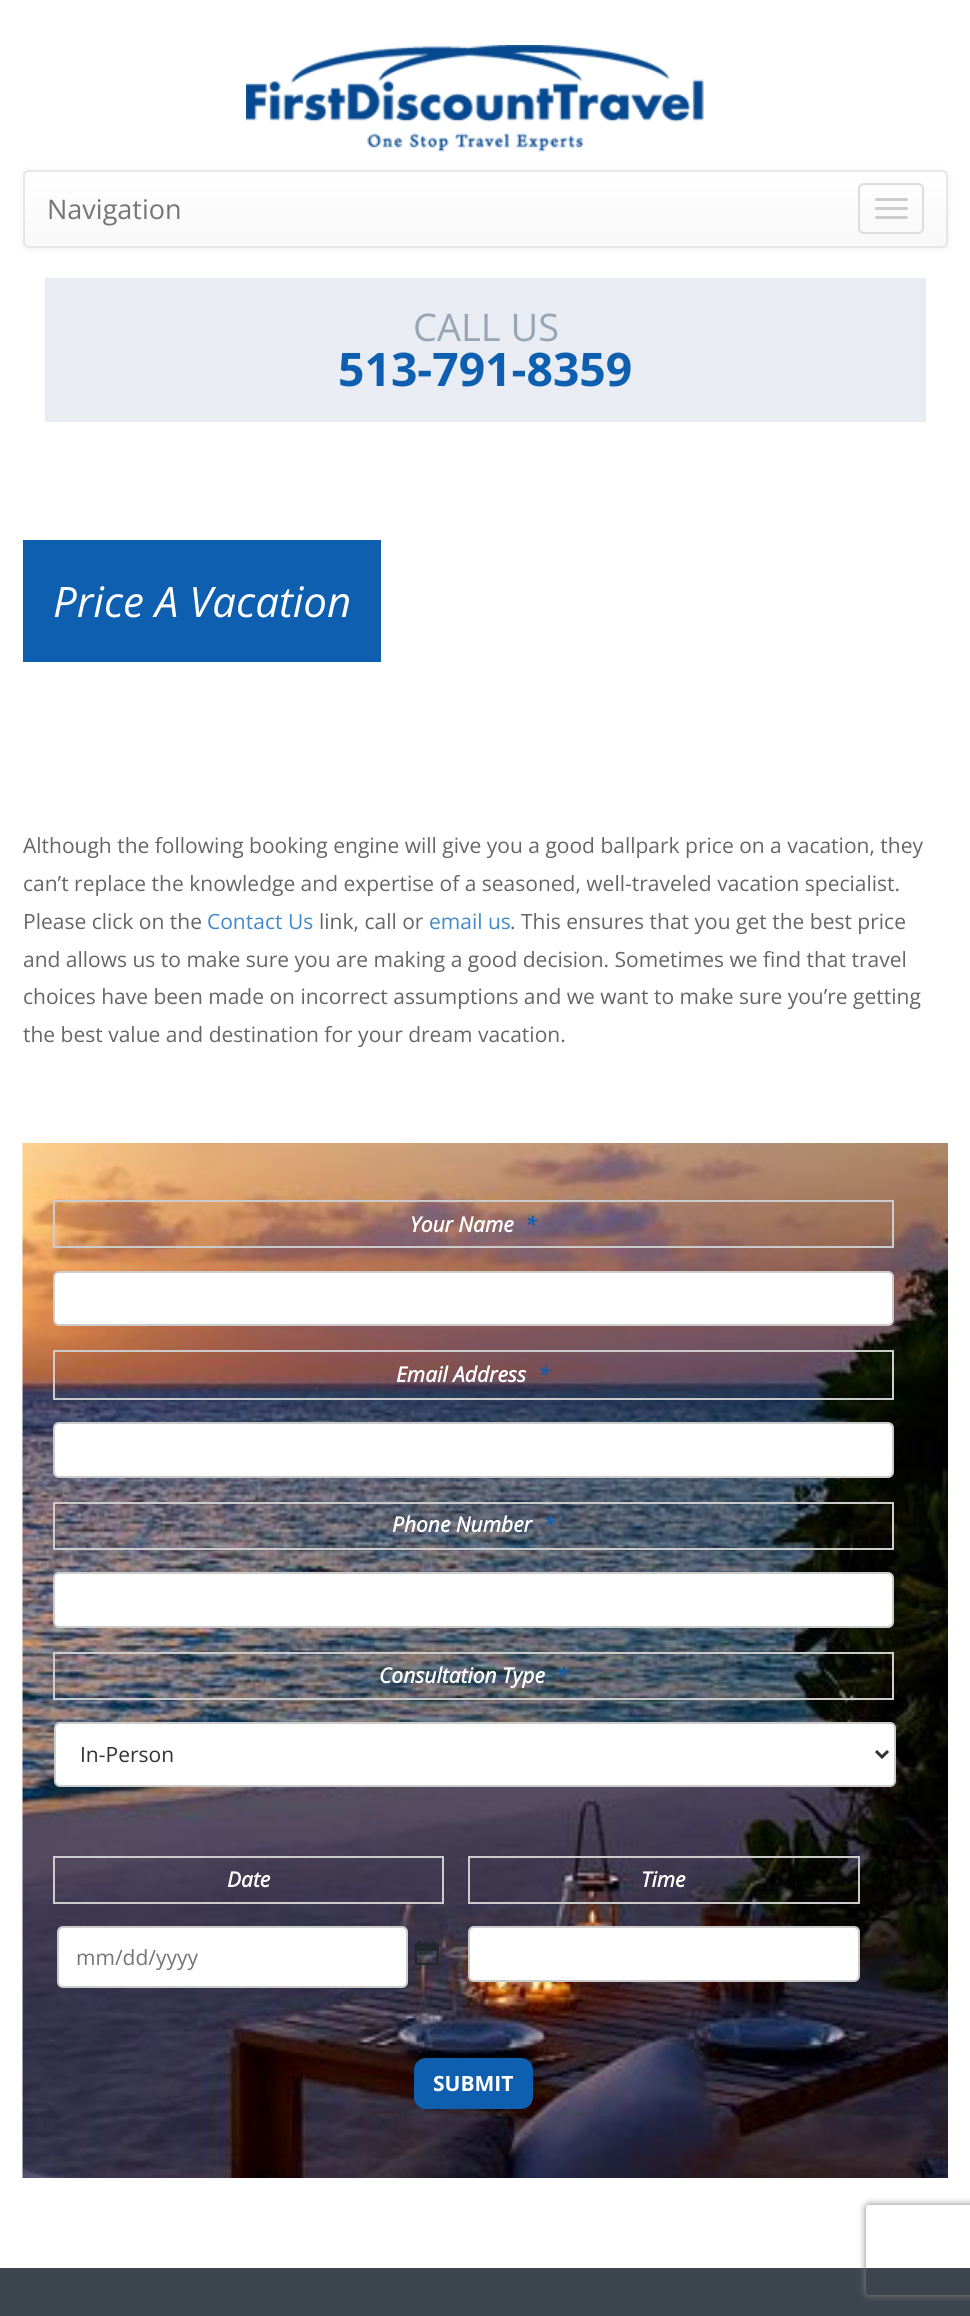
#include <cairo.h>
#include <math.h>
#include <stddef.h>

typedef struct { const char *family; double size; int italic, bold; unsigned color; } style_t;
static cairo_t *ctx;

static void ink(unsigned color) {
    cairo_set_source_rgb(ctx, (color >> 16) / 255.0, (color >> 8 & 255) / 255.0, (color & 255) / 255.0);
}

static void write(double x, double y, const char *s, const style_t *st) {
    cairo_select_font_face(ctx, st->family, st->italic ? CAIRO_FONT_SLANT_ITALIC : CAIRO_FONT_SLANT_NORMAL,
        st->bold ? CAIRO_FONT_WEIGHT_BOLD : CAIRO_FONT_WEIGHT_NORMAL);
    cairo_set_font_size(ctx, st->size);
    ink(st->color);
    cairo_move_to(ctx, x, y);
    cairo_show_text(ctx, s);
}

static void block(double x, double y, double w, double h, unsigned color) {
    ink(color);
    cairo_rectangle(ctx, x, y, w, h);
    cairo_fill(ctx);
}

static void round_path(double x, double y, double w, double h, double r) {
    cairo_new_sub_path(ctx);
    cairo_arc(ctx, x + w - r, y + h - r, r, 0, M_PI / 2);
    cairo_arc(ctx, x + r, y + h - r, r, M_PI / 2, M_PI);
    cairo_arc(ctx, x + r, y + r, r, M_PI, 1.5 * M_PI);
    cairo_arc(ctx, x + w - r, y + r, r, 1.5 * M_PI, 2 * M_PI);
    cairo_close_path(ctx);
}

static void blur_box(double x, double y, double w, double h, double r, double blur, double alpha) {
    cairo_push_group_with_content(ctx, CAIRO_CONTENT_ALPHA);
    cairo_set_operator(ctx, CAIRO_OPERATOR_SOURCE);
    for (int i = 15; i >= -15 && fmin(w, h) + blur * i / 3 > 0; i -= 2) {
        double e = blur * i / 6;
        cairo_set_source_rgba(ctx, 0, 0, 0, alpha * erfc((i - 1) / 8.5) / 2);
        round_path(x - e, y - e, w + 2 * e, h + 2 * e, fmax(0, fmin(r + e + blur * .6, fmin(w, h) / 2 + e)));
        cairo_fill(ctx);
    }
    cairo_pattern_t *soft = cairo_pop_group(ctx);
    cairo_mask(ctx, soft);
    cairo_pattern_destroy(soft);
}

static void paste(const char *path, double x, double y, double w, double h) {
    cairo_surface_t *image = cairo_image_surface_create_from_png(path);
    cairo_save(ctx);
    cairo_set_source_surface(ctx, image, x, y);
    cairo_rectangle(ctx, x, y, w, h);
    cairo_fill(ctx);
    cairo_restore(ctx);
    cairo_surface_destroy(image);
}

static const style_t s1 = {"Open Sans", 27, 0, 0, 0x757575};
static const style_t s2 = {"Open Sans", 38, 0, 0, 0x98a5b5};
static const style_t s3 = {"Open Sans", 46.25, 0, 1, 0x0e5fb0};
static const style_t s4 = {"Open Sans", 42, 1, 0, 0xffffff};
static const style_t s5 = {"Open Sans", 21, 0, 0, 0x666666};
static const style_t s6 = {"Open Sans", 21, 0, 0, 0x428bca};
static const style_t s7 = {"Open Sans", 21, 1, 1, 0xffffff};
static const style_t s8 = {"Open Sans", 21, 1, 1, 0x0e5fb0};
static const style_t s9 = {"Open Sans", 21, 0, 0, 0x333333};
static const style_t s10 = {"Open Sans", 21, 0, 0, 0x757575};
static const style_t s11 = {"Open Sans", 21, 0, 1, 0xffffff};

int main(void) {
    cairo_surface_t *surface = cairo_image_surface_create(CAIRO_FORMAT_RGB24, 970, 2316);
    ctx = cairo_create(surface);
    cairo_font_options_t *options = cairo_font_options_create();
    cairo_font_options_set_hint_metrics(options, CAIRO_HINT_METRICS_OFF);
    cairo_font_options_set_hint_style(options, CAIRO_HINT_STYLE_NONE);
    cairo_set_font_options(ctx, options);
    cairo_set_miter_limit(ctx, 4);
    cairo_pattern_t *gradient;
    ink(0xffffff);
    cairo_paint(ctx);
    paste("pic1.png", 246, 45, 458, 107);
    ink(0x000000);
    blur_box(23, 171, 925, 78, 6, 4, 0.07);
    cairo_save(ctx);
    round_path(23, 170, 925, 78, 6);
    cairo_clip(ctx);
    gradient = cairo_pattern_create_linear(485, 171, 485, 246);
    cairo_pattern_add_color_stop_rgba(gradient, 0, 1, 1, 1, 1);
    cairo_pattern_add_color_stop_rgba(gradient, 1, 0.973, 0.973, 0.973, 1);
    cairo_set_source(ctx, gradient);
    cairo_pattern_destroy(gradient);
    cairo_rectangle(ctx, 23, 171, 925, 75);
    cairo_fill(ctx);
    cairo_restore(ctx);
    round_path(24, 171, 923, 76, 5);
    ink(0xe7e7e7);
    cairo_stroke(ctx);
    write(47, 219, "Navigation", &s1);
    round_path(859, 184, 64, 49, 5);
    ink(0xdddddd);
    cairo_stroke(ctx);
    ink(0xcccccc);
    round_path(875, 198, 33, 3, 1.5);
    cairo_fill(ctx);
    round_path(875, 207, 33, 3, 1.5);
    cairo_fill(ctx);
    round_path(875, 216, 33, 3, 1.5);
    cairo_fill(ctx);
    block(45, 278, 881, 144, 0xe9ecf3);
    write(413, 341, "CALL US", &s2);
    write(338, 386, "513-791-8359", &s3);
    block(23, 540, 358, 122, 0x0e5fb0);
    write(53, 617, "Price A Vacation", &s4);
    write(23, 853, "Although the following booking engine will give you a good ballpark price on a vacation, they", &s5);
    write(23, 891, "can’t replace the knowledge and expertise of a seasoned, well-traveled vacation specialist.", &s5);
    write(23, 929, "Please click on the", &s5);
    write(207, 929, "Contact Us", &s6);
    write(319, 929, "link, call or", &s5);
    write(429, 929, "email us", &s6);
    write(510, 929, ". This ensures that you get the best price", &s5);
    write(23, 967, "and allows us to make sure you are making a good decision. Sometimes we find that travel", &s5);
    write(23, 1004, "choices have been made on incorrect assumptions and we want to make sure you’re getting", &s5);
    write(23, 1042, "the best value and destination for your dream vacation.", &s5);
    paste("pic2.png", 22, 1143, 926, 1035);
    cairo_rectangle(ctx, 54, 1201, 839, 46);
    ink(0xcccccc);
    cairo_stroke(ctx);
    write(410, 1232, "Your Name", &s7);
    write(525, 1232, "*", &s8);
    ink(0xffffff);
    round_path(54, 1272, 839, 53, 5);
    cairo_fill_preserve(ctx);
    ink(0xcccccc);
    cairo_stroke(ctx);
    cairo_rectangle(ctx, 54, 1351, 839, 48);
    cairo_stroke(ctx);
    write(396, 1382, "Email Address", &s7);
    write(538, 1382, "*", &s8);
    ink(0xffffff);
    round_path(54, 1423, 839, 54, 5);
    cairo_fill_preserve(ctx);
    ink(0xcccccc);
    cairo_stroke(ctx);
    cairo_rectangle(ctx, 54, 1503, 839, 46);
    cairo_stroke(ctx);
    write(392, 1532, "Phone Number", &s7);
    write(543, 1532, "*", &s8);
    ink(0xffffff);
    round_path(54, 1573, 839, 54, 5);
    cairo_fill_preserve(ctx);
    ink(0xcccccc);
    cairo_stroke(ctx);
    cairo_rectangle(ctx, 54, 1653, 839, 46);
    cairo_stroke(ctx);
    write(379, 1683, "Consultation Type", &s7);
    write(556, 1683, "*", &s8);
    ink(0xffffff);
    round_path(55, 1723, 840, 63, 5);
    cairo_fill_preserve(ctx);
    ink(0xcccccc);
    cairo_stroke(ctx);
    cairo_new_path(ctx);
    cairo_move_to(ctx, 876, 1751);
    cairo_line_to(ctx, 882, 1757);
    cairo_line_to(ctx, 888, 1751);
    ink(0x333333);
    cairo_set_line_width(ctx, 3);
    cairo_stroke(ctx);
    write(80, 1762, "In-Person", &s9);
    cairo_rectangle(ctx, 54, 1857, 389, 46);
    ink(0xcccccc);
    cairo_set_line_width(ctx, 2);
    cairo_stroke(ctx);
    write(227, 1887, "Date", &s7);
    round_path(58, 1927, 349, 60, 5);
    cairo_fill_preserve(ctx);
    ink(0xcccccc);
    cairo_stroke(ctx);
    write(76, 1965, "mm/dd/yyyy", &s10);
    paste("pic3.png", 414, 1941, 25, 24);
    cairo_rectangle(ctx, 469, 1857, 390, 46);
    ink(0xcccccc);
    cairo_stroke(ctx);
    write(641, 1887, "Time", &s7);
    round_path(469, 1927, 390, 54, 5);
    cairo_fill_preserve(ctx);
    ink(0xcccccc);
    cairo_stroke(ctx);
    block(0, 2268, 970, 48, 0x3c454e);
    cairo_save(ctx);
    cairo_set_fill_rule(ctx, CAIRO_FILL_RULE_EVEN_ODD);
    cairo_new_path(ctx);
    cairo_move_to(ctx, 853, 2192);
    cairo_line_to(ctx, 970, 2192);
    cairo_line_to(ctx, 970, 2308);
    cairo_line_to(ctx, 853, 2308);
    cairo_close_path(ctx);
    cairo_move_to(ctx, 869, 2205);
    cairo_line_to(ctx, 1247, 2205);
    cairo_curve_to(ctx, 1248.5, 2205, 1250, 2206.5, 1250, 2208);
    cairo_line_to(ctx, 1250, 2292);
    cairo_curve_to(ctx, 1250, 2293.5, 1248.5, 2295, 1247, 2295);
    cairo_line_to(ctx, 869, 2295);
    cairo_curve_to(ctx, 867.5, 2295, 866, 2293.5, 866, 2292);
    cairo_line_to(ctx, 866, 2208);
    cairo_curve_to(ctx, 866, 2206.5, 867.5, 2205, 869, 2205);
    cairo_close_path(ctx);
    cairo_clip(ctx);
    ink(0x808080);
    blur_box(866, 2205, 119, 90, 3, 4, 1);
    cairo_restore(ctx);
    ink(0x0e5fb0);
    round_path(414, 2058, 119, 51, 12);
    cairo_fill(ctx);
    write(433, 2091, "SUBMIT", &s11);
    cairo_surface_write_to_png(surface, "screenshot.png");
    cairo_font_options_destroy(options);
    cairo_destroy(ctx);
    cairo_surface_destroy(surface);
    return 0;
}
